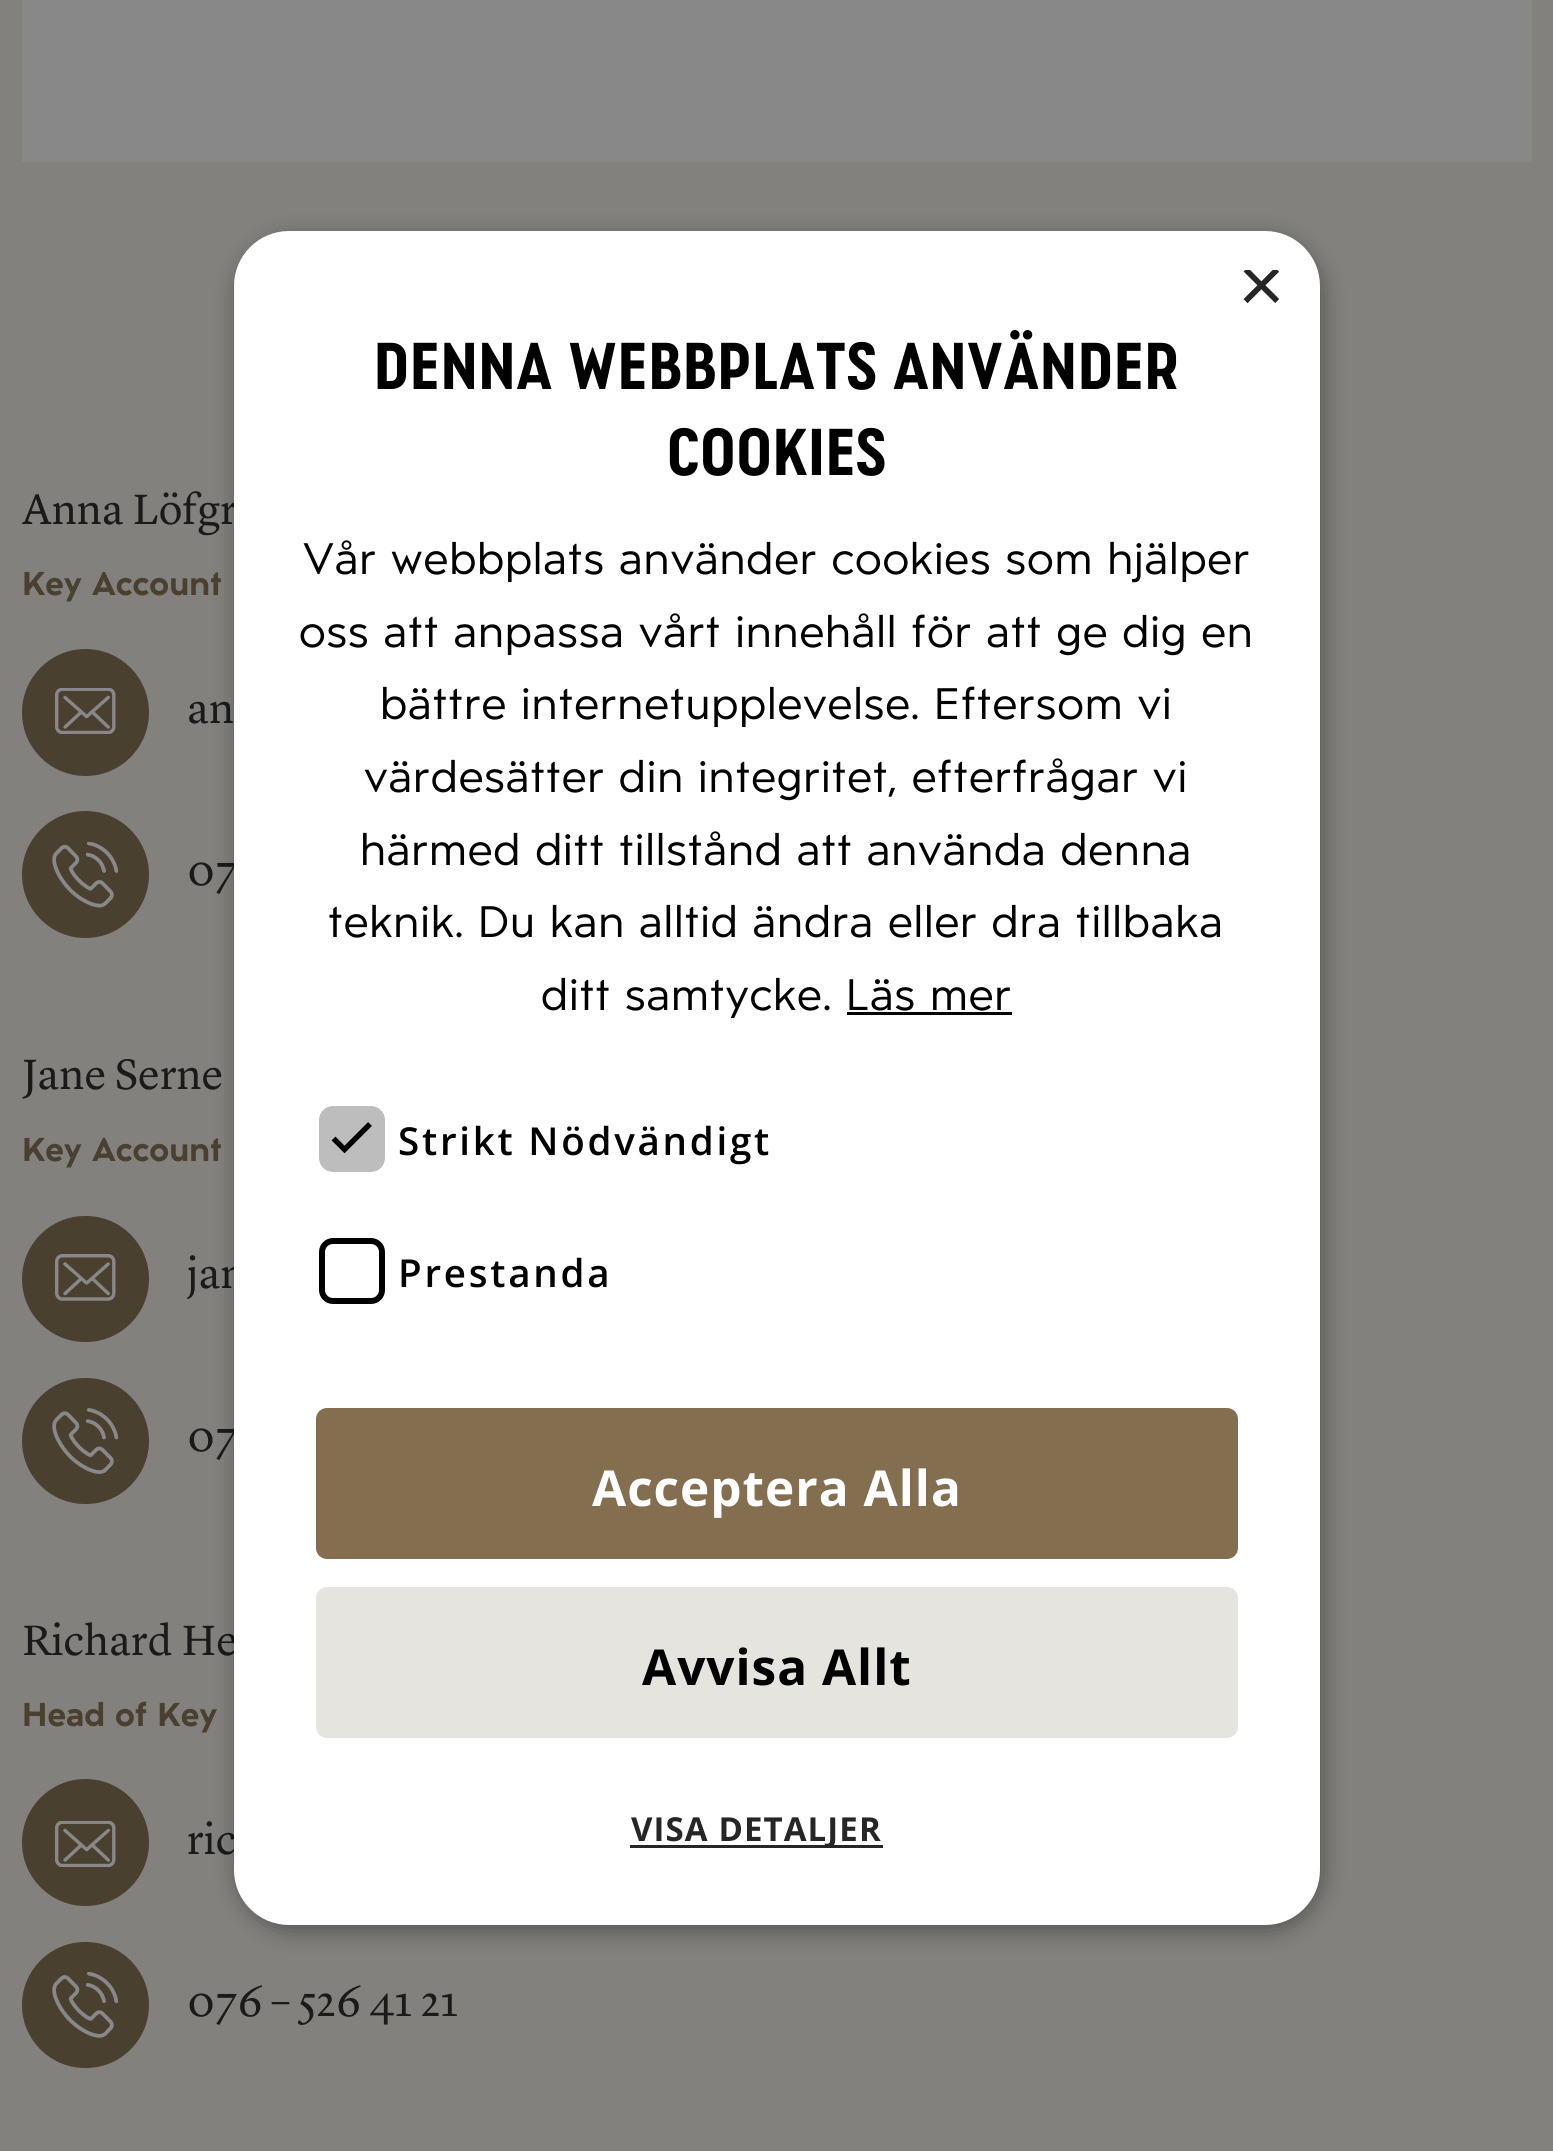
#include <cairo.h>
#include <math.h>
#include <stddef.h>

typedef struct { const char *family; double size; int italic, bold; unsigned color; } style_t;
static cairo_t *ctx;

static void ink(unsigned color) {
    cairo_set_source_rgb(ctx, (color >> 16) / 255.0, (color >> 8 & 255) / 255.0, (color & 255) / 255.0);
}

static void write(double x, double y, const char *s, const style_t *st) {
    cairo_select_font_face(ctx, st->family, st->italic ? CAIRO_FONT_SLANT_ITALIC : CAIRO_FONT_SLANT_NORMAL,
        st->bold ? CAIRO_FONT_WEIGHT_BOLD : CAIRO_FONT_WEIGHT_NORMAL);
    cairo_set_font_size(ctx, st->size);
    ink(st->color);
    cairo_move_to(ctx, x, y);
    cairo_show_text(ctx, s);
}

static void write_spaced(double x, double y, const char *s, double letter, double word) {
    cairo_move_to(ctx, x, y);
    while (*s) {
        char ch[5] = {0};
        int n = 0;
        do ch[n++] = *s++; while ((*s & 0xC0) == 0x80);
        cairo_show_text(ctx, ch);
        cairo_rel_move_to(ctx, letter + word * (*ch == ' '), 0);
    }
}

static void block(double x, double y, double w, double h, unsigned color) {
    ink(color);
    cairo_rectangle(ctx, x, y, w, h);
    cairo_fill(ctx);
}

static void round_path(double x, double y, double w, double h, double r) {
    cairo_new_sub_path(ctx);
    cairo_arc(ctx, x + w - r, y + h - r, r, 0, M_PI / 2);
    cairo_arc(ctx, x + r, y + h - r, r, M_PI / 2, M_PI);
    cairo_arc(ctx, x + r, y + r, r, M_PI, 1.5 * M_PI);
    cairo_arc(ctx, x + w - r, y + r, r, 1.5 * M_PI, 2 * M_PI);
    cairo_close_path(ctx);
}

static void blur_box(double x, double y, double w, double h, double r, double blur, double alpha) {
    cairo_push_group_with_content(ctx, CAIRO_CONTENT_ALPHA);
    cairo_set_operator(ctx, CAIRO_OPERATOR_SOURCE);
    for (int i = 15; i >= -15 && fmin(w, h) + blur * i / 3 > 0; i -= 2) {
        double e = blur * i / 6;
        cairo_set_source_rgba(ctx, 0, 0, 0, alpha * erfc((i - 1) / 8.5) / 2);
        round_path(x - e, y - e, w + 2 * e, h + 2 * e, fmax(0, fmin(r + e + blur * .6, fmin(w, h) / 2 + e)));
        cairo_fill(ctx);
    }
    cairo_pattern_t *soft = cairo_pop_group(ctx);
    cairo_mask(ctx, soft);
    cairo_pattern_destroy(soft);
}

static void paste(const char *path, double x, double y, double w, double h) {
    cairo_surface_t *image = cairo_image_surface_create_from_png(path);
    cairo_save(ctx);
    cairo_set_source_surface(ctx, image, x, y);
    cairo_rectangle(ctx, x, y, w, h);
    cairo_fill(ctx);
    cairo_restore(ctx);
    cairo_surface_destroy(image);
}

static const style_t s1 = {"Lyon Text", 44, 0, 0, 0x1b1a1a};
static const style_t s2 = {"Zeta", 33, 0, 1, 0x4a4030};
static const style_t s3 = {"Liberation Sans", 80, 0, 0, 0x262626};

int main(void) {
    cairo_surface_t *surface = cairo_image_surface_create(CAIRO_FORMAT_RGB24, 1553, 2151);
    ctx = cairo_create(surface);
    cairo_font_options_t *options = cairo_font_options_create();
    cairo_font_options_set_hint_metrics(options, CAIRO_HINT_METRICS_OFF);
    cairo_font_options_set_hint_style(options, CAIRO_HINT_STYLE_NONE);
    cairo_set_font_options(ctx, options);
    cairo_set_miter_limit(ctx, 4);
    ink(0x82817e);
    cairo_paint(ctx);
    block(22, 0, 1510, 162, 0x888888);
    write(22, 524, "Anna Löfgr", &s1);
    write(22, 595, "Key Account", &s2);
    cairo_new_path(ctx);
    cairo_arc(ctx, 85.5, 712.5, 63.5, 0, 2 * M_PI);
    cairo_fill(ctx);
    paste("pic1.png", 55, 688, 61, 46);
    write(187, 723, "an", &s1);
    ink(0x4a4030);
    cairo_new_path(ctx);
    cairo_arc(ctx, 85.5, 874.5, 63.5, 0, 2 * M_PI);
    cairo_fill(ctx);
    paste("pic2.png", 52, 842, 66, 66);
    write(187, 885, "07", &s1);
    write(22, 1089, "Jane Serne", &s1);
    write(22, 1161, "Key Account", &s2);
    round_path(22, 1216, 127, 126, 63);
    cairo_fill(ctx);
    paste("pic3.png", 55, 1254, 61, 47);
    write(187, 1288, "jan", &s1);
    ink(0x4a4030);
    round_path(22, 1378, 127, 126, 63);
    cairo_fill(ctx);
    paste("pic4.png", 52, 1408, 66, 66);
    write(187, 1451, "07", &s1);
    write(22, 1655, "Richard He", &s1);
    write(22, 1726, "Head of Key", &s2);
    cairo_new_path(ctx);
    cairo_arc(ctx, 85.5, 1842.5, 63.5, 0, 2 * M_PI);
    cairo_fill(ctx);
    paste("pic1.png", 55, 1821, 61, 46);
    write(187, 1854, "ric", &s1);
    ink(0x4a4030);
    round_path(22, 1942, 127, 126, 63);
    cairo_fill(ctx);
    paste("pic5.png", 52, 1972, 66, 66);
    write(187, 2016, "076 – 526 41 21", &s1);
    ink(0x000000);
    blur_box(237, 237, 1086, 1694, 55, 11, 0.35);
    ink(0xffffff);
    round_path(234, 231, 1086, 1694, 55);
    cairo_fill(ctx);
    cairo_save(ctx);
    cairo_rectangle(ctx, 1238, 270, 41, 41);
    cairo_clip(ctx);
    write(1238, 312, "×", &s3);
    cairo_restore(ctx);
    cairo_select_font_face(ctx, "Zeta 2", CAIRO_FONT_SLANT_NORMAL, CAIRO_FONT_WEIGHT_BOLD);
    cairo_set_font_size(ctx, 66);
    ink(0x000000);
    write_spaced(374, 389, "Denna webbplats använder", 1.1, 0);
    write_spaced(667, 475, "cookies", 1.1, 0);
    cairo_select_font_face(ctx, "Zeta", CAIRO_FONT_SLANT_NORMAL, CAIRO_FONT_WEIGHT_NORMAL);
    cairo_set_font_size(ctx, 44);
    write_spaced(303, 574, "Vår webbplats använder cookies som hjälper", 0.8, 0);
    write_spaced(299, 647, "oss att anpassa vårt innehåll för att ge dig en", 0.8, 0);
    write_spaced(380, 719, "bättre internetupplevelse. Eftersom vi", 0.8, 0);
    write_spaced(364, 792, "värdesätter din integritet, efterfrågar vi", 0.8, 0);
    write_spaced(360, 865, "härmed ditt tillstånd att använda denna", 0.8, 0);
    write_spaced(328, 937, "teknik. Du kan alltid ändra eller dra tillbaka", 0.8, 0);
    write_spaced(541, 1010, "ditt samtycke. Läs mer", 0.8, 0);
    block(847, 1012, 165, 3, 0x000000);
    ink(0xbdbdbd);
    round_path(319, 1106, 66, 66, 14);
    cairo_fill(ctx);
    cairo_new_path(ctx);
    cairo_move_to(ctx, 333.5, 1138.5);
    cairo_line_to(ctx, 344.5, 1149.5);
    cairo_line_to(ctx, 370, 1124);
    ink(0x000000);
    cairo_set_line_width(ctx, 5.4);
    cairo_stroke(ctx);
    cairo_select_font_face(ctx, "Open Sans SemiBold", CAIRO_FONT_SLANT_NORMAL, CAIRO_FONT_WEIGHT_NORMAL);
    cairo_set_font_size(ctx, 38.5);
    write_spaced(398, 1155, "Strikt Nödvändigt", 2.75, 0);
    round_path(322, 1241, 60, 60, 11);
    cairo_set_line_width(ctx, 6);
    cairo_stroke(ctx);
    write_spaced(398, 1287, "Prestanda", 2.75, 0);
    ink(0x836e4f);
    round_path(316, 1408, 922, 151, 11);
    cairo_fill(ctx);
    cairo_select_font_face(ctx, "Open Sans", CAIRO_FONT_SLANT_NORMAL, CAIRO_FONT_WEIGHT_BOLD);
    cairo_set_font_size(ctx, 49.5);
    ink(0xffffff);
    write_spaced(592, 1506, "Acceptera Alla", 1, 0);
    ink(0xe6e4df);
    round_path(316, 1587, 922, 151, 11);
    cairo_fill(ctx);
    ink(0x000000);
    write_spaced(642, 1685, "Avvisa Allt", 1, 0);
    block(630, 1845, 253, 3, 0x262626);
    cairo_set_font_size(ctx, 33);
    write_spaced(631, 1841, "VISA DETALJER", 1.1, 0);
    cairo_surface_write_to_png(surface, "screenshot.png");
    cairo_font_options_destroy(options);
    cairo_destroy(ctx);
    cairo_surface_destroy(surface);
    return 0;
}
